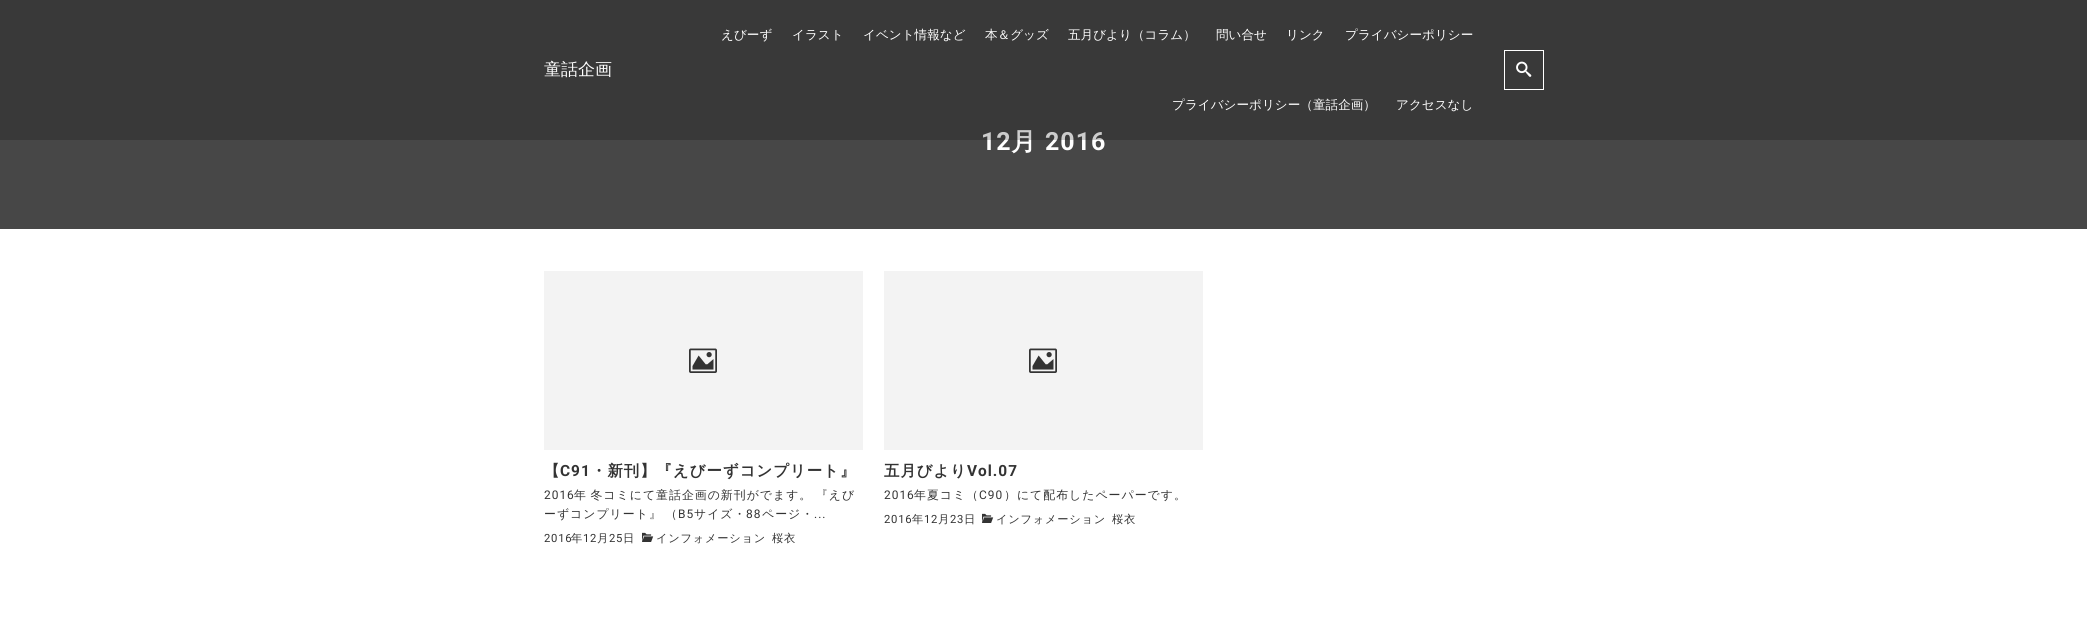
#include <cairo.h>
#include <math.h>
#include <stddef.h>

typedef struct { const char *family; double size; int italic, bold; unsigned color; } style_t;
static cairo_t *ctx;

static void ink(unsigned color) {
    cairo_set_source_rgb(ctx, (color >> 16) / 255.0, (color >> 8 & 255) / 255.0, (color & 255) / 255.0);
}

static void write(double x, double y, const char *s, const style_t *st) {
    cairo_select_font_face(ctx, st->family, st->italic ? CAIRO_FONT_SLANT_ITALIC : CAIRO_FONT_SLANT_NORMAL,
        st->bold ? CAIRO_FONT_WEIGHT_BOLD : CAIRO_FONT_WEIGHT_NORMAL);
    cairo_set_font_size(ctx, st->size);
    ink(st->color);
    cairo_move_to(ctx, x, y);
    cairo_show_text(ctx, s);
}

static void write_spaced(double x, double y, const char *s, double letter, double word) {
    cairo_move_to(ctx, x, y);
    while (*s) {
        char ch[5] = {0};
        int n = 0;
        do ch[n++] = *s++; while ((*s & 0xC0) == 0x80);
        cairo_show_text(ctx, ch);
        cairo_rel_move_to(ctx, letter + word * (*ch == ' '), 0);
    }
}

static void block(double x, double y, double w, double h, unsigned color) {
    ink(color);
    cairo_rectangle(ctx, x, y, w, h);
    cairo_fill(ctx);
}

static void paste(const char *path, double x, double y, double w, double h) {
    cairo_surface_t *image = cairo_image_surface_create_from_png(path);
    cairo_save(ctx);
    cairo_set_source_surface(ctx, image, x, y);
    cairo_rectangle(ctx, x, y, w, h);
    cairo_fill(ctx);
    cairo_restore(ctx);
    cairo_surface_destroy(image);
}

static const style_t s1 = {"WenQuanYi Zen Hei Medium", 17, 0, 0, 0xffffff};
static const style_t s2 = {"WenQuanYi Zen Hei Medium", 12.6, 0, 0, 0xffffff};

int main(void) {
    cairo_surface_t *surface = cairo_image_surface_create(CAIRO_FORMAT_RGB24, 2087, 642);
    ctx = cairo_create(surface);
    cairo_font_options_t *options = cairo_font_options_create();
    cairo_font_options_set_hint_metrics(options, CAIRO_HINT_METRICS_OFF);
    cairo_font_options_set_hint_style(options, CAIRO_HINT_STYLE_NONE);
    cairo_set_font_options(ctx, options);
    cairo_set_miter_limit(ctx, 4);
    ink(0xffffff);
    cairo_paint(ctx);
    block(0, 0, 2087, 229, 0x474747);
    cairo_select_font_face(ctx, "Roboto", CAIRO_FONT_SLANT_NORMAL, CAIRO_FONT_WEIGHT_BOLD);
    cairo_set_font_size(ctx, 25);
    ink(0xffffff);
    write_spaced(981, 150, "12", 1, 0);
    cairo_select_font_face(ctx, "WenQuanYi Zen Hei", CAIRO_FONT_SLANT_NORMAL, CAIRO_FONT_WEIGHT_BOLD);
    write_spaced(1011, 150, "月", 1, 0);
    cairo_select_font_face(ctx, "Roboto", CAIRO_FONT_SLANT_NORMAL, CAIRO_FONT_WEIGHT_BOLD);
    write_spaced(1045, 150, "2016", 1, 0);
    cairo_set_source_rgba(ctx, 0, 0, 0, 0.2);
    cairo_rectangle(ctx, 0, 0, 2087, 140);
    cairo_fill(ctx);
    write(544, 75, "童話企画", &s1);
    write(721, 39, "えびーず", &s2);
    write(792, 39, "イラスト", &s2);
    write(863, 39, "イベント情報など", &s2);
    write(985, 39, "本＆グッズ", &s2);
    write(1068, 39, "五月びより（コラム）", &s2);
    write(1216, 39, "問い合せ", &s2);
    write(1286, 39, "リンク", &s2);
    write(1345, 39, "プライバシーポリシー", &s2);
    write(1172, 109, "プライバシーポリシー（童話企画）", &s2);
    write(1396, 109, "アクセスなし", &s2);
    cairo_rectangle(ctx, 1504.5, 50.5, 39, 39);
    cairo_set_line_width(ctx, 1);
    cairo_stroke(ctx);
    paste("pic1.png", 1516, 61, 16, 16);
    block(544, 271, 319, 179, 0xf3f3f3);
    paste("pic2.png", 689, 348, 28, 25);
    cairo_select_font_face(ctx, "WenQuanYi Zen Hei", CAIRO_FONT_SLANT_NORMAL, CAIRO_FONT_WEIGHT_BOLD);
    cairo_set_font_size(ctx, 15.4);
    ink(0x333333);
    write_spaced(544, 476, "【", 1, 0);
    cairo_select_font_face(ctx, "Roboto", CAIRO_FONT_SLANT_NORMAL, CAIRO_FONT_WEIGHT_BOLD);
    write_spaced(560, 476, "C91", 1, 0);
    cairo_select_font_face(ctx, "WenQuanYi Zen Hei", CAIRO_FONT_SLANT_NORMAL, CAIRO_FONT_WEIGHT_BOLD);
    write_spaced(591, 476, "・新刊】『えびーずコンプリート』", 1, 0);
    cairo_select_font_face(ctx, "Roboto", CAIRO_FONT_SLANT_NORMAL, CAIRO_FONT_WEIGHT_NORMAL);
    cairo_set_font_size(ctx, 11.9);
    write_spaced(544, 499, "2016", 1, 0);
    cairo_select_font_face(ctx, "WenQuanYi Zen Hei Medium", CAIRO_FONT_SLANT_NORMAL, CAIRO_FONT_WEIGHT_NORMAL);
    write_spaced(574, 499, "年 冬コミにて童話企画の新刊がでます。 『えび", 1, -1);
    write_spaced(544, 518, "ーずコンプリート』 （", 1, -1);
    cairo_select_font_face(ctx, "Roboto", CAIRO_FONT_SLANT_NORMAL, CAIRO_FONT_WEIGHT_NORMAL);
    write_spaced(678, 518, "B5", 1, 0);
    cairo_select_font_face(ctx, "WenQuanYi Zen Hei Medium", CAIRO_FONT_SLANT_NORMAL, CAIRO_FONT_WEIGHT_NORMAL);
    write_spaced(694, 518, "サイズ・", 1, 0);
    cairo_select_font_face(ctx, "Roboto", CAIRO_FONT_SLANT_NORMAL, CAIRO_FONT_WEIGHT_NORMAL);
    write_spaced(746, 518, "88", 1, 0);
    cairo_select_font_face(ctx, "WenQuanYi Zen Hei Medium", CAIRO_FONT_SLANT_NORMAL, CAIRO_FONT_WEIGHT_NORMAL);
    write_spaced(762, 518, "ページ・", 1, 0);
    cairo_select_font_face(ctx, "Roboto", CAIRO_FONT_SLANT_NORMAL, CAIRO_FONT_WEIGHT_NORMAL);
    write_spaced(814, 518, "...", 1, 0);
    cairo_set_font_size(ctx, 11.25);
    write_spaced(544, 542, "2016", 0.75, 0);
    cairo_select_font_face(ctx, "WenQuanYi Zen Hei Medium", CAIRO_FONT_SLANT_NORMAL, CAIRO_FONT_WEIGHT_NORMAL);
    write_spaced(571, 542, "年", 0.75, 0);
    cairo_select_font_face(ctx, "Roboto", CAIRO_FONT_SLANT_NORMAL, CAIRO_FONT_WEIGHT_NORMAL);
    write_spaced(583, 542, "12", 0.75, 0);
    cairo_select_font_face(ctx, "WenQuanYi Zen Hei Medium", CAIRO_FONT_SLANT_NORMAL, CAIRO_FONT_WEIGHT_NORMAL);
    write_spaced(597, 542, "月", 0.75, 0);
    cairo_select_font_face(ctx, "Roboto", CAIRO_FONT_SLANT_NORMAL, CAIRO_FONT_WEIGHT_NORMAL);
    write_spaced(609, 542, "25", 0.75, 0);
    cairo_select_font_face(ctx, "WenQuanYi Zen Hei Medium", CAIRO_FONT_SLANT_NORMAL, CAIRO_FONT_WEIGHT_NORMAL);
    write_spaced(623, 542, "日", 0.75, 0);
    paste("pic3.png", 642, 532, 12, 10);
    write_spaced(656, 542, "インフォメーション", 0.75, 0);
    write_spaced(772, 542, "桜衣", 0.75, 0);
    block(884, 271, 319, 179, 0xf3f3f3);
    paste("pic2.png", 1029, 348, 28, 25);
    cairo_select_font_face(ctx, "WenQuanYi Zen Hei", CAIRO_FONT_SLANT_NORMAL, CAIRO_FONT_WEIGHT_BOLD);
    cairo_set_font_size(ctx, 15.4);
    ink(0x333333);
    write_spaced(884, 476, "五月びより", 1, 0);
    cairo_select_font_face(ctx, "Roboto", CAIRO_FONT_SLANT_NORMAL, CAIRO_FONT_WEIGHT_BOLD);
    write_spaced(967, 476, "Vol.07", 1, 0);
    cairo_select_font_face(ctx, "Roboto", CAIRO_FONT_SLANT_NORMAL, CAIRO_FONT_WEIGHT_NORMAL);
    cairo_set_font_size(ctx, 11.9);
    write_spaced(884, 499, "2016", 1, 0);
    cairo_select_font_face(ctx, "WenQuanYi Zen Hei Medium", CAIRO_FONT_SLANT_NORMAL, CAIRO_FONT_WEIGHT_NORMAL);
    write_spaced(914, 499, "年夏コミ（", 1, 0);
    cairo_select_font_face(ctx, "Roboto", CAIRO_FONT_SLANT_NORMAL, CAIRO_FONT_WEIGHT_NORMAL);
    write_spaced(979, 499, "C90", 1, 0);
    cairo_select_font_face(ctx, "WenQuanYi Zen Hei Medium", CAIRO_FONT_SLANT_NORMAL, CAIRO_FONT_WEIGHT_NORMAL);
    write_spaced(1004, 499, "）にて配布したペーパーです。", 1, 0);
    cairo_select_font_face(ctx, "Roboto", CAIRO_FONT_SLANT_NORMAL, CAIRO_FONT_WEIGHT_NORMAL);
    cairo_set_font_size(ctx, 11.25);
    write_spaced(884, 523, "2016", 0.75, 0);
    cairo_select_font_face(ctx, "WenQuanYi Zen Hei Medium", CAIRO_FONT_SLANT_NORMAL, CAIRO_FONT_WEIGHT_NORMAL);
    write_spaced(912, 523, "年", 0.75, 0);
    cairo_select_font_face(ctx, "Roboto", CAIRO_FONT_SLANT_NORMAL, CAIRO_FONT_WEIGHT_NORMAL);
    write_spaced(924, 523, "12", 0.75, 0);
    cairo_select_font_face(ctx, "WenQuanYi Zen Hei Medium", CAIRO_FONT_SLANT_NORMAL, CAIRO_FONT_WEIGHT_NORMAL);
    write_spaced(938, 523, "月", 0.75, 0);
    cairo_select_font_face(ctx, "Roboto", CAIRO_FONT_SLANT_NORMAL, CAIRO_FONT_WEIGHT_NORMAL);
    write_spaced(950, 523, "23", 0.75, 0);
    cairo_select_font_face(ctx, "WenQuanYi Zen Hei Medium", CAIRO_FONT_SLANT_NORMAL, CAIRO_FONT_WEIGHT_NORMAL);
    write_spaced(964, 523, "日", 0.75, 0);
    paste("pic3.png", 982, 513, 12, 10);
    write_spaced(996, 523, "インフォメーション", 0.75, 0);
    write_spaced(1112, 523, "桜衣", 0.75, 0);
    cairo_surface_write_to_png(surface, "screenshot.png");
    cairo_font_options_destroy(options);
    cairo_destroy(ctx);
    cairo_surface_destroy(surface);
    return 0;
}
